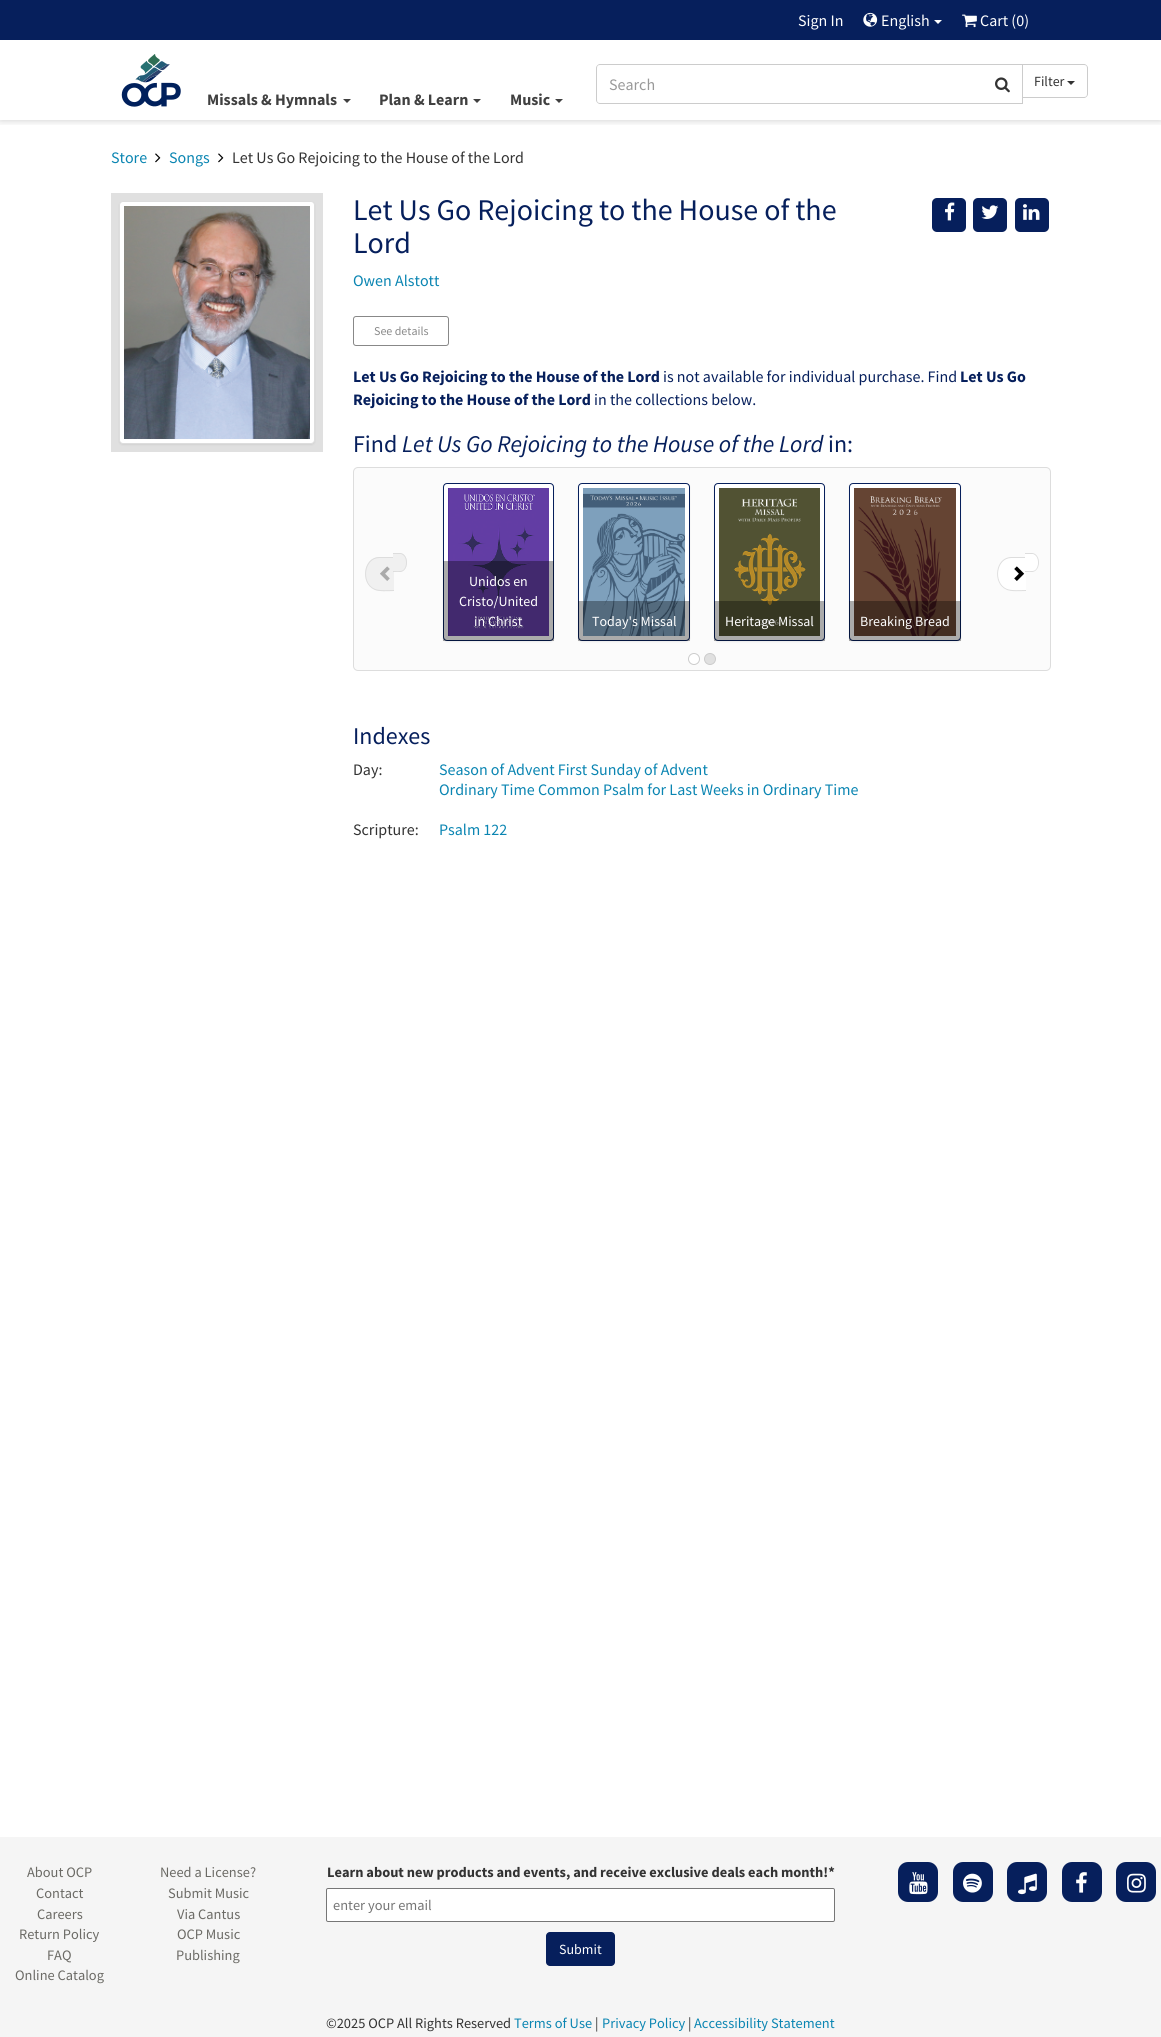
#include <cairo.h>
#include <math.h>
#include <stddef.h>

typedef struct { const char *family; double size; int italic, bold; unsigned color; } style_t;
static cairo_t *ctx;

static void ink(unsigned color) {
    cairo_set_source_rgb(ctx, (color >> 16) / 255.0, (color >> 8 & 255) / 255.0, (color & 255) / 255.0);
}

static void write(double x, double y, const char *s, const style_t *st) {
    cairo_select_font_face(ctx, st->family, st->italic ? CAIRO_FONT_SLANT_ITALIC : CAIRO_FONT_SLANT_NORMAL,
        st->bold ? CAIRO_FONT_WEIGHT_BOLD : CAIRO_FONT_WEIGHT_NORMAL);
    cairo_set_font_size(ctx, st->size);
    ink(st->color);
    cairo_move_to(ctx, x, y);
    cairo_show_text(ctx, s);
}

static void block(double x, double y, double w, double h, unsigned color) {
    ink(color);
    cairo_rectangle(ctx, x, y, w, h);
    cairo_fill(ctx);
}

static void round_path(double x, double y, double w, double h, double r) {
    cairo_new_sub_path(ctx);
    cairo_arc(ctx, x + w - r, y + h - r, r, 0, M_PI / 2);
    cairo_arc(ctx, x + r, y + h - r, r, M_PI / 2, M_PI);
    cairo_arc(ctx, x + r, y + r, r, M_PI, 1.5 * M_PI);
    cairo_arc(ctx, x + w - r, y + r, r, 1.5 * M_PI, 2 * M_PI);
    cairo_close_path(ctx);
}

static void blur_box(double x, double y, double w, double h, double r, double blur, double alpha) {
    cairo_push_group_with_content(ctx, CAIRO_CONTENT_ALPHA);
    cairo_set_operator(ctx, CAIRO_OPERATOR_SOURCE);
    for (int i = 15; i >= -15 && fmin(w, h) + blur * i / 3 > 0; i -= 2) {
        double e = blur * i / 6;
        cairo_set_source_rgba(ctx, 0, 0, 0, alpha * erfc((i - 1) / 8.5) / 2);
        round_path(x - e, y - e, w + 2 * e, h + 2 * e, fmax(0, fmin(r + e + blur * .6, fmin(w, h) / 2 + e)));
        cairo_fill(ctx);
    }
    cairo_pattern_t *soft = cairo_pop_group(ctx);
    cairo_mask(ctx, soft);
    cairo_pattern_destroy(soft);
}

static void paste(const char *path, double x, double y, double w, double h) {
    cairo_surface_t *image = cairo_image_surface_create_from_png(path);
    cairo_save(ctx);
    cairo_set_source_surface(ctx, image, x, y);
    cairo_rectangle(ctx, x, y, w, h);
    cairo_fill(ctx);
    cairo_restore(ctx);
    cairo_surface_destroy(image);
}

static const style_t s1 = {"Source Sans Pro", 16, 0, 0, 0xffffff};
static const style_t s2 = {"Source Sans Pro", 16, 0, 0, 0x999999};
static const style_t s3 = {"Source Sans Pro", 14, 0, 0, 0x333333};
static const style_t s4 = {"Source Sans Pro", 16, 0, 1, 0x404040};
static const style_t s5 = {"Source Sans Pro", 16, 0, 0, 0x0a85b2};
static const style_t s6 = {"Source Sans Pro", 16, 0, 0, 0x333333};
static const style_t s7 = {"Source Sans Pro", 30, 0, 0, 0x061f5c};
static const style_t s8 = {"Source Sans Pro", 12, 0, 0, 0x888888};
static const style_t s9 = {"Source Sans Pro", 16, 0, 1, 0x061f5c};
static const style_t s10 = {"Source Sans Pro", 16, 0, 0, 0x061f5c};
static const style_t s11 = {"Source Sans Pro", 24, 0, 0, 0x061f5c};
static const style_t s12 = {"Source Sans Pro", 24, 1, 0, 0x061f5c};
static const style_t s13 = {"Source Sans Pro", 14, 0, 0, 0xffffff};
static const style_t s14 = {"Source Sans Pro", 14.4, 0, 0, 0x6b6a65};
static const style_t s15 = {"Source Sans Pro", 14.4, 0, 1, 0x333333};
static const style_t s16 = {"Source Sans Pro", 14.4, 0, 0, 0x757575};
static const style_t s17 = {"Source Sans Pro", 14.4, 0, 0, 0x333333};
static const style_t s18 = {"Source Sans Pro", 14.4, 0, 0, 0x0a85b2};

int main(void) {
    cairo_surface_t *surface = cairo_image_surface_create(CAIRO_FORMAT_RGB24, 1161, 2037);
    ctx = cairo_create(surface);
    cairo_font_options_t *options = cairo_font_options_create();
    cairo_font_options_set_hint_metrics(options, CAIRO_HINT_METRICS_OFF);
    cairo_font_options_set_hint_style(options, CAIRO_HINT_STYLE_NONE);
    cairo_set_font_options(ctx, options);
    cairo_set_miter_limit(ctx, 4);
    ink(0xffffff);
    cairo_paint(ctx);
    cairo_save(ctx);
    cairo_rectangle(ctx, 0, 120, 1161, 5);
    cairo_clip(ctx);
    ink(0x000000);
    blur_box(0, 38, 1161, 80, 0, 5, 0.3);
    cairo_restore(ctx);
    block(0, 0, 1161, 40, 0x061f5c);
    write(798, 26, "Sign In", &s1);
    paste("pic1.png", 863, 12, 15, 15);
    write(881, 26, "English", &s1);
    cairo_new_path(ctx);
    cairo_move_to(ctx, 934, 20);
    cairo_line_to(ctx, 942, 20);
    cairo_line_to(ctx, 938, 24);
    cairo_close_path(ctx);
    cairo_fill(ctx);
    paste("pic2.png", 962, 14, 15, 14);
    write(980, 26, "Cart (0)", &s1);
    ink(0xcccccc);
    cairo_set_fill_rule(ctx, CAIRO_FILL_RULE_EVEN_ODD);
    cairo_new_path(ctx);
    cairo_move_to(ctx, 600, 64);
    cairo_line_to(ctx, 984, 64);
    cairo_line_to(ctx, 984, 104);
    cairo_line_to(ctx, 600, 104);
    cairo_curve_to(ctx, 598, 104, 596, 102, 596, 100);
    cairo_line_to(ctx, 596, 68);
    cairo_curve_to(ctx, 596, 66, 598, 64, 600, 64);
    cairo_close_path(ctx);
    cairo_move_to(ctx, 600, 65);
    cairo_line_to(ctx, 984, 65);
    cairo_line_to(ctx, 984, 103);
    cairo_line_to(ctx, 600, 103);
    cairo_curve_to(ctx, 598, 103, 597, 102, 597, 100);
    cairo_line_to(ctx, 597, 68);
    cairo_curve_to(ctx, 597, 66, 598, 65, 600, 65);
    cairo_close_path(ctx);
    cairo_fill(ctx);
    write(609, 90, "Search", &s2);
    block(983, 64, 40, 1, 0xcccccc);
    block(1022, 64, 1, 40, 0xcccccc);
    block(983, 103, 40, 1, 0xcccccc);
    paste("pic3.png", 995, 77, 15, 16);
    cairo_new_path(ctx);
    cairo_move_to(ctx, 1022, 64);
    cairo_line_to(ctx, 1084, 64);
    cairo_curve_to(ctx, 1086, 64, 1088, 66, 1088, 68);
    cairo_line_to(ctx, 1088, 94);
    cairo_curve_to(ctx, 1088, 96, 1086, 98, 1084, 98);
    cairo_line_to(ctx, 1022, 98);
    cairo_close_path(ctx);
    cairo_move_to(ctx, 1022, 65);
    cairo_line_to(ctx, 1084, 65);
    cairo_curve_to(ctx, 1086, 65, 1087, 66, 1087, 68);
    cairo_line_to(ctx, 1087, 94);
    cairo_curve_to(ctx, 1087, 96, 1086, 97, 1084, 97);
    cairo_line_to(ctx, 1022, 97);
    cairo_close_path(ctx);
    cairo_fill(ctx);
    write(1034, 86, "Filter", &s3);
    cairo_set_fill_rule(ctx, CAIRO_FILL_RULE_WINDING);
    cairo_new_path(ctx);
    cairo_move_to(ctx, 1067, 81);
    cairo_line_to(ctx, 1075, 81);
    cairo_line_to(ctx, 1071, 85);
    cairo_close_path(ctx);
    cairo_fill(ctx);
    paste("pic4.png", 121, 54, 60, 53);
    write(207, 105, "Missals & Hymnals", &s4);
    cairo_new_path(ctx);
    cairo_move_to(ctx, 343, 99);
    cairo_line_to(ctx, 351, 99);
    cairo_line_to(ctx, 347, 103);
    cairo_close_path(ctx);
    cairo_fill(ctx);
    write(379, 105, "Plan & Learn", &s4);
    cairo_new_path(ctx);
    cairo_move_to(ctx, 473, 99);
    cairo_line_to(ctx, 481, 99);
    cairo_line_to(ctx, 477, 103);
    cairo_close_path(ctx);
    cairo_fill(ctx);
    write(510, 105, "Music", &s4);
    cairo_new_path(ctx);
    cairo_move_to(ctx, 555, 99);
    cairo_line_to(ctx, 563, 99);
    cairo_line_to(ctx, 559, 103);
    cairo_close_path(ctx);
    cairo_fill(ctx);
    write(111, 163, "Store", &s5);
    paste("pic5.png", 155, 153, 6, 10);
    write(169, 163, "Songs", &s5);
    paste("pic5.png", 218, 153, 6, 10);
    write(232, 163, "Let Us Go Rejoicing to the House of the Lord", &s6);
    block(111, 193, 212, 259, 0xe0e0e0);
    ink(0x000000);
    blur_box(119, 202, 196, 243, 4, 1, 0.07);
    ink(0xffffff);
    round_path(119.5, 201.5, 195, 242, 3.5);
    cairo_fill_preserve(ctx);
    ink(0xdddddd);
    cairo_set_line_width(ctx, 1);
    cairo_stroke(ctx);
    paste("pic6.png", 124, 206, 186, 233);
    write(353, 220, "Let Us Go Rejoicing to the House of the", &s7);
    write(353, 253, "Lord", &s7);
    write(353, 286, "Owen Alstott", &s5);
    ink(0x061f5c);
    round_path(932, 198, 34, 34, 5);
    cairo_fill(ctx);
    paste("pic7.png", 945, 202, 10, 19);
    round_path(973, 198, 34, 34, 5);
    cairo_fill(ctx);
    paste("pic8.png", 981, 205, 18, 14);
    round_path(1015, 198, 34, 34, 5);
    cairo_fill(ctx);
    paste("pic9.png", 1023, 204, 17, 16);
    round_path(353.5, 316.5, 95, 29, 2.5);
    ink(0x888888);
    cairo_stroke(ctx);
    write(374, 335, "See details", &s8);
    write(353, 382, "Let Us Go Rejoicing to the House of the Lord", &s9);
    write(663, 382, "is not available for individual purchase. Find", &s10);
    write(960, 382, "Let Us Go", &s9);
    write(353, 405, "Rejoicing to the House of the Lord", &s9);
    write(594, 405, "in the collections below.", &s10);
    write(353, 452, "Find", &s11);
    write(402, 452, "Let Us Go Rejoicing to the House of the Lord", &s12);
    write(828, 452, "in:", &s11);
    ink(0xfbfbfb);
    round_path(353.5, 467.5, 697, 203, 4.5);
    cairo_fill_preserve(ctx);
    ink(0xdddddd);
    cairo_stroke(ctx);
    ink(0xf0f0f0);
    cairo_new_path(ctx);
    cairo_move_to(ctx, 379.5, 557);
    cairo_line_to(ctx, 394, 557);
    cairo_line_to(ctx, 394, 591);
    cairo_curve_to(ctx, 388.5, 591, 378.5, 592, 374, 589.5);
    cairo_curve_to(ctx, 360, 583, 363, 557, 379.5, 557);
    cairo_close_path(ctx);
    cairo_fill(ctx);
    ink(0xdddddd);
    cairo_set_fill_rule(ctx, CAIRO_FILL_RULE_EVEN_ODD);
    cairo_new_path(ctx);
    cairo_move_to(ctx, 379.5, 557);
    cairo_line_to(ctx, 394, 557);
    cairo_line_to(ctx, 394, 591);
    cairo_curve_to(ctx, 388.5, 591, 378.5, 592, 374, 589.5);
    cairo_curve_to(ctx, 360, 583, 363, 557, 379.5, 557);
    cairo_close_path(ctx);
    cairo_move_to(ctx, 379.5, 558);
    cairo_line_to(ctx, 394, 558);
    cairo_line_to(ctx, 394, 590);
    cairo_curve_to(ctx, 389, 590, 378.5, 591, 374, 588.5);
    cairo_curve_to(ctx, 361.5, 582.5, 364, 558, 379.5, 558);
    cairo_close_path(ctx);
    cairo_fill(ctx);
    ink(0xf0f0f0);
    cairo_set_fill_rule(ctx, CAIRO_FILL_RULE_WINDING);
    cairo_new_path(ctx);
    cairo_move_to(ctx, 393, 553);
    cairo_line_to(ctx, 400, 553);
    cairo_curve_to(ctx, 404, 553, 407, 557.5, 407, 562.5);
    cairo_curve_to(ctx, 407, 567.5, 404, 572, 400, 572);
    cairo_line_to(ctx, 393, 572);
    cairo_close_path(ctx);
    cairo_fill(ctx);
    ink(0xdddddd);
    cairo_set_fill_rule(ctx, CAIRO_FILL_RULE_EVEN_ODD);
    cairo_new_path(ctx);
    cairo_move_to(ctx, 393, 553);
    cairo_line_to(ctx, 400, 553);
    cairo_curve_to(ctx, 404, 553, 407, 557.5, 407, 562.5);
    cairo_curve_to(ctx, 407, 567.5, 404, 572, 400, 572);
    cairo_line_to(ctx, 393, 572);
    cairo_close_path(ctx);
    cairo_move_to(ctx, 393, 554);
    cairo_line_to(ctx, 401, 554);
    cairo_curve_to(ctx, 407.5, 556, 407.5, 567.5, 402.5, 570.5);
    cairo_curve_to(ctx, 400, 571.5, 395.5, 571, 393, 571);
    cairo_close_path(ctx);
    cairo_fill(ctx);
    paste("pic10.png", 380, 566, 10, 15);
    ink(0x000000);
    blur_box(443, 484, 111, 158, 4, 1, 0.07);
    ink(0xffffff);
    round_path(443.5, 483.5, 110, 157, 3.5);
    cairo_fill_preserve(ctx);
    ink(0x061f5c);
    cairo_stroke(ctx);
    paste("pic11.png", 448, 488, 101, 148);
    cairo_set_source_rgba(ctx, 0, 0, 0, 0.33);
    cairo_rectangle(ctx, 443, 561, 111, 80);
    cairo_fill(ctx);
    write(469, 586, "Unidos en", &s13);
    write(459, 606, "Cristo/United", &s13);
    write(474, 626, "in Christ", &s13);
    ink(0x000000);
    blur_box(578, 484, 112, 158, 4, 1, 0.07);
    ink(0xffffff);
    round_path(578.5, 483.5, 111, 157, 3.5);
    cairo_fill_preserve(ctx);
    ink(0x061f5c);
    cairo_stroke(ctx);
    paste("pic12.png", 583, 488, 102, 148);
    cairo_set_source_rgba(ctx, 0, 0, 0, 0.33);
    cairo_rectangle(ctx, 578, 601, 112, 40);
    cairo_fill(ctx);
    write(592, 626, "Today's Missal", &s13);
    ink(0x000000);
    blur_box(714, 484, 111, 158, 4, 1, 0.07);
    ink(0xffffff);
    round_path(714.5, 483.5, 110, 157, 3.5);
    cairo_fill_preserve(ctx);
    ink(0x061f5c);
    cairo_stroke(ctx);
    paste("pic13.png", 719, 488, 101, 148);
    cairo_set_source_rgba(ctx, 0, 0, 0, 0.33);
    cairo_rectangle(ctx, 714, 601, 111, 40);
    cairo_fill(ctx);
    write(725, 626, "Heritage Missal", &s13);
    ink(0x000000);
    blur_box(849, 484, 112, 158, 4, 1, 0.07);
    ink(0xffffff);
    round_path(849.5, 483.5, 111, 157, 3.5);
    cairo_fill_preserve(ctx);
    ink(0x061f5c);
    cairo_stroke(ctx);
    paste("pic14.png", 854, 488, 102, 148);
    cairo_set_source_rgba(ctx, 0, 0, 0, 0.33);
    cairo_rectangle(ctx, 849, 601, 112, 40);
    cairo_fill(ctx);
    write(860, 626, "Breaking Bread", &s13);
    cairo_set_fill_rule(ctx, CAIRO_FILL_RULE_WINDING);
    cairo_new_path(ctx);
    cairo_move_to(ctx, 1011.5, 557);
    cairo_line_to(ctx, 1026, 557);
    cairo_line_to(ctx, 1026, 591);
    cairo_curve_to(ctx, 1020.5, 591, 1010.5, 592, 1006, 589.5);
    cairo_curve_to(ctx, 992, 583, 995, 557, 1011.5, 557);
    cairo_close_path(ctx);
    cairo_fill(ctx);
    ink(0xdddddd);
    cairo_set_fill_rule(ctx, CAIRO_FILL_RULE_EVEN_ODD);
    cairo_new_path(ctx);
    cairo_move_to(ctx, 1011.5, 557);
    cairo_line_to(ctx, 1026, 557);
    cairo_line_to(ctx, 1026, 591);
    cairo_curve_to(ctx, 1020.5, 591, 1010.5, 592, 1006, 589.5);
    cairo_curve_to(ctx, 992, 583, 995, 557, 1011.5, 557);
    cairo_close_path(ctx);
    cairo_move_to(ctx, 1011.5, 558);
    cairo_line_to(ctx, 1026, 558);
    cairo_line_to(ctx, 1026, 590);
    cairo_curve_to(ctx, 1021, 590, 1010.5, 591, 1006, 588.5);
    cairo_curve_to(ctx, 993.5, 582.5, 996, 558, 1011.5, 558);
    cairo_close_path(ctx);
    cairo_fill(ctx);
    ink(0xffffff);
    cairo_set_fill_rule(ctx, CAIRO_FILL_RULE_WINDING);
    cairo_new_path(ctx);
    cairo_move_to(ctx, 1025, 553);
    cairo_line_to(ctx, 1032, 553);
    cairo_curve_to(ctx, 1036, 553, 1039, 557.5, 1039, 562.5);
    cairo_curve_to(ctx, 1039, 567.5, 1036, 572, 1032, 572);
    cairo_line_to(ctx, 1025, 572);
    cairo_close_path(ctx);
    cairo_fill(ctx);
    ink(0xdddddd);
    cairo_set_fill_rule(ctx, CAIRO_FILL_RULE_EVEN_ODD);
    cairo_new_path(ctx);
    cairo_move_to(ctx, 1025, 553);
    cairo_line_to(ctx, 1032, 553);
    cairo_curve_to(ctx, 1036, 553, 1039, 557.5, 1039, 562.5);
    cairo_curve_to(ctx, 1039, 567.5, 1036, 572, 1032, 572);
    cairo_line_to(ctx, 1025, 572);
    cairo_close_path(ctx);
    cairo_move_to(ctx, 1025, 554);
    cairo_line_to(ctx, 1033, 554);
    cairo_curve_to(ctx, 1039.5, 556, 1039.5, 567.5, 1034.5, 570.5);
    cairo_curve_to(ctx, 1032, 571.5, 1027.5, 571, 1025, 571);
    cairo_close_path(ctx);
    cairo_fill(ctx);
    paste("pic15.png", 1014, 566, 11, 15);
    ink(0xffffff);
    cairo_arc(ctx, 694, 659, 5.5, 0, 2 * M_PI);
    cairo_fill_preserve(ctx);
    ink(0xcccccc);
    cairo_stroke(ctx);
    ink(0xe0e0e0);
    cairo_arc(ctx, 710, 659, 5.5, 0, 2 * M_PI);
    cairo_fill_preserve(ctx);
    ink(0xcccccc);
    cairo_stroke(ctx);
    write(353, 744, "Indexes", &s11);
    write(353, 775, "Day:", &s6);
    write(439, 775, "Season of Advent First Sunday of Advent", &s5);
    write(439, 795, "Ordinary Time Common Psalm for Last Weeks in Ordinary Time", &s5);
    write(353, 835, "Scripture:", &s6);
    write(439, 835, "Psalm 122", &s5);
    block(0, 1837, 1161, 200, 0xf5f5f5);
    write(27, 1877, "About OCP", &s14);
    write(36, 1898, "Contact", &s14);
    write(37, 1919, "Careers", &s14);
    write(19, 1939, "Return Policy", &s14);
    write(47, 1960, "FAQ", &s14);
    write(15, 1980, "Online Catalog", &s14);
    write(160, 1877, "Need a License?", &s14);
    write(168, 1898, "Submit Music", &s14);
    write(177, 1919, "Via Cantus", &s14);
    write(177, 1939, "OCP Music", &s14);
    write(176, 1960, "Publishing", &s14);
    write(327, 1877, "Learn about new products and events, and receive exclusive deals each month!*", &s15);
    ink(0xffffff);
    round_path(326.5, 1888.5, 508, 33, 1.5);
    cairo_fill_preserve(ctx);
    ink(0x767676);
    cairo_stroke(ctx);
    write(333, 1910, "enter your email", &s16);
    ink(0x061f5c);
    round_path(546, 1932, 69, 34, 4);
    cairo_fill(ctx);
    write(559, 1954, "Submit", &s13);
    ink(0x061f5c);
    round_path(898, 1862, 40, 40, 10);
    cairo_fill(ctx);
    paste("pic16.png", 909, 1872, 19, 23);
    round_path(953, 1862, 40, 40, 10);
    cairo_fill(ctx);
    paste("pic17.png", 963, 1873, 19, 20);
    round_path(1007, 1862, 40, 40, 10);
    cairo_fill(ctx);
    paste("pic18.png", 1018, 1873, 19, 22);
    round_path(1062, 1862, 40, 40, 10);
    cairo_fill(ctx);
    paste("pic19.png", 1076, 1872, 11, 21);
    round_path(1116, 1862, 40, 40, 10);
    cairo_fill(ctx);
    paste("pic20.png", 1127, 1873, 19, 20);
    write(326, 2028, "©2025 OCP All Rights Reserved", &s17);
    write(514, 2028, "Terms of Use", &s18);
    write(595, 2028, "|", &s17);
    write(602, 2028, "Privacy Policy", &s18);
    write(688, 2028, "|", &s17);
    write(694, 2028, "Accessibility Statement", &s18);
    cairo_surface_write_to_png(surface, "screenshot.png");
    cairo_font_options_destroy(options);
    cairo_destroy(ctx);
    cairo_surface_destroy(surface);
    return 0;
}
